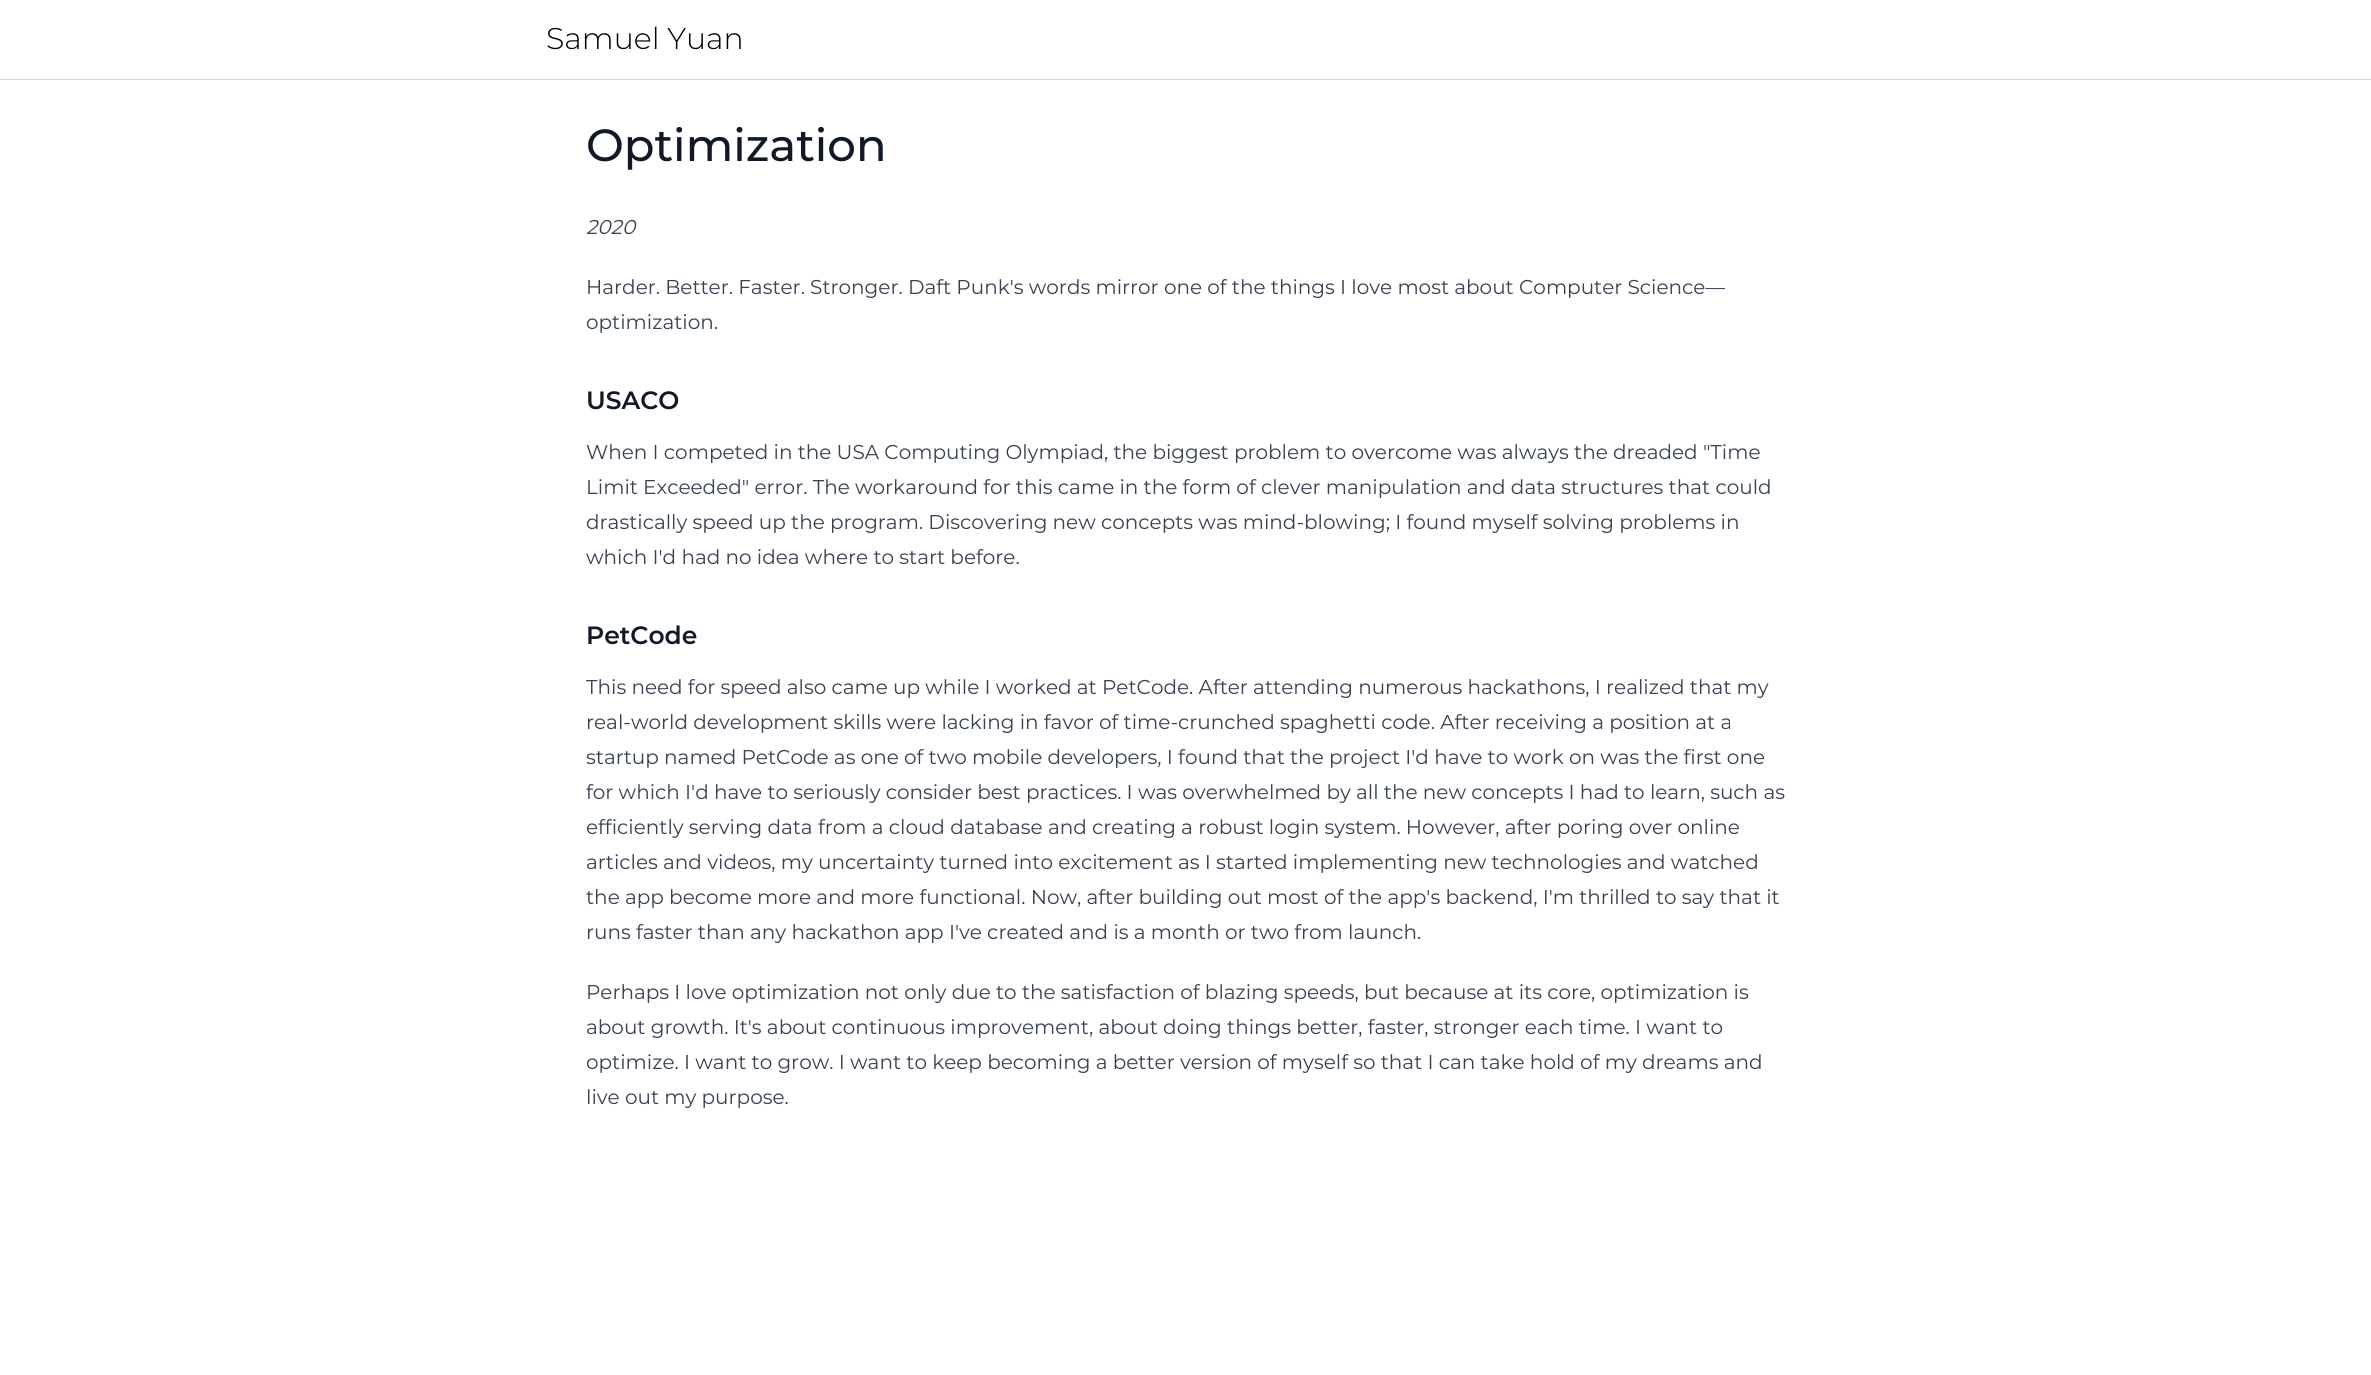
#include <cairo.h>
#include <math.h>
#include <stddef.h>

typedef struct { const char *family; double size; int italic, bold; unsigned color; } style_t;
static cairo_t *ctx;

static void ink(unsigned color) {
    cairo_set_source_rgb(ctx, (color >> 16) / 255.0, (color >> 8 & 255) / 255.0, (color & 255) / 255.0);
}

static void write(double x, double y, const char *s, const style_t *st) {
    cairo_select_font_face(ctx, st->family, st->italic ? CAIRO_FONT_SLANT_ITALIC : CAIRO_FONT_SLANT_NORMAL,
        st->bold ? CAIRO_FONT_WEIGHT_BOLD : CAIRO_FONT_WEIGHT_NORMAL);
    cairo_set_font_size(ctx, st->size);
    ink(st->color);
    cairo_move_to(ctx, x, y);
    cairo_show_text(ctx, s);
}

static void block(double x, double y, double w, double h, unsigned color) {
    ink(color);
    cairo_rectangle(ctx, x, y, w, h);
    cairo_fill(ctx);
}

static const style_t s1 = {"Montserrat Light", 30, 0, 0, 0x000000};
static const style_t s2 = {"Montserrat Medium", 45, 0, 0, 0x111827};
static const style_t s3 = {"Montserrat", 20, 1, 0, 0x374151};
static const style_t s4 = {"Montserrat", 20, 0, 0, 0x374151};
static const style_t s5 = {"Montserrat SemiBold", 25, 0, 0, 0x111827};

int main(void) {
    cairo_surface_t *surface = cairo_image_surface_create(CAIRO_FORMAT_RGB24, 2371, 1375);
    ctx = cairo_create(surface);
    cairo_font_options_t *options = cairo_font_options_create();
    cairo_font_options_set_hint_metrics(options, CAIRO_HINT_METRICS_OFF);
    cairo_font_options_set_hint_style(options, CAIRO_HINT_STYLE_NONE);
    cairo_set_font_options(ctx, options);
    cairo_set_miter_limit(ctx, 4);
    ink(0xffffff);
    cairo_paint(ctx);
    block(0, 79, 2371, 1, 0xc7d2fe);
    write(546, 49, "Samuel Yuan", &s1);
    write(586, 161, "Optimization", &s2);
    write(586, 234, "2020", &s3);
    write(586, 294, "Harder. Better. Faster. Stronger. Daft Punk's words mirror one of the things I love most about Computer Science—", &s4);
    write(586, 329, "optimization.", &s4);
    write(586, 409, "USACO", &s5);
    write(586, 459, "When I competed in the USA Computing Olympiad, the biggest problem to overcome was always the dreaded \"Time", &s4);
    write(586, 494, "Limit Exceeded\" error. The workaround for this came in the form of clever manipulation and data structures that could", &s4);
    write(586, 529, "drastically speed up the program. Discovering new concepts was mind-blowing; I found myself solving problems in", &s4);
    write(586, 564, "which I'd had no idea where to start before.", &s4);
    write(586, 644, "PetCode", &s5);
    write(586, 694, "This need for speed also came up while I worked at PetCode. After attending numerous hackathons, I realized that my", &s4);
    write(586, 729, "real-world development skills were lacking in favor of time-crunched spaghetti code. After receiving a position at a", &s4);
    write(586, 764, "startup named PetCode as one of two mobile developers, I found that the project I'd have to work on was the first one", &s4);
    write(586, 799, "for which I'd have to seriously consider best practices. I was overwhelmed by all the new concepts I had to learn, such as", &s4);
    write(586, 834, "efficiently serving data from a cloud database and creating a robust login system. However, after poring over online", &s4);
    write(586, 869, "articles and videos, my uncertainty turned into excitement as I started implementing new technologies and watched", &s4);
    write(586, 904, "the app become more and more functional. Now, after building out most of the app's backend, I'm thrilled to say that it", &s4);
    write(586, 939, "runs faster than any hackathon app I've created and is a month or two from launch.", &s4);
    write(586, 999, "Perhaps I love optimization not only due to the satisfaction of blazing speeds, but because at its core, optimization is", &s4);
    write(586, 1034, "about growth. It's about continuous improvement, about doing things better, faster, stronger each time. I want to", &s4);
    write(586, 1069, "optimize. I want to grow. I want to keep becoming a better version of myself so that I can take hold of my dreams and", &s4);
    write(586, 1104, "live out my purpose.", &s4);
    cairo_surface_write_to_png(surface, "screenshot.png");
    cairo_font_options_destroy(options);
    cairo_destroy(ctx);
    cairo_surface_destroy(surface);
    return 0;
}
